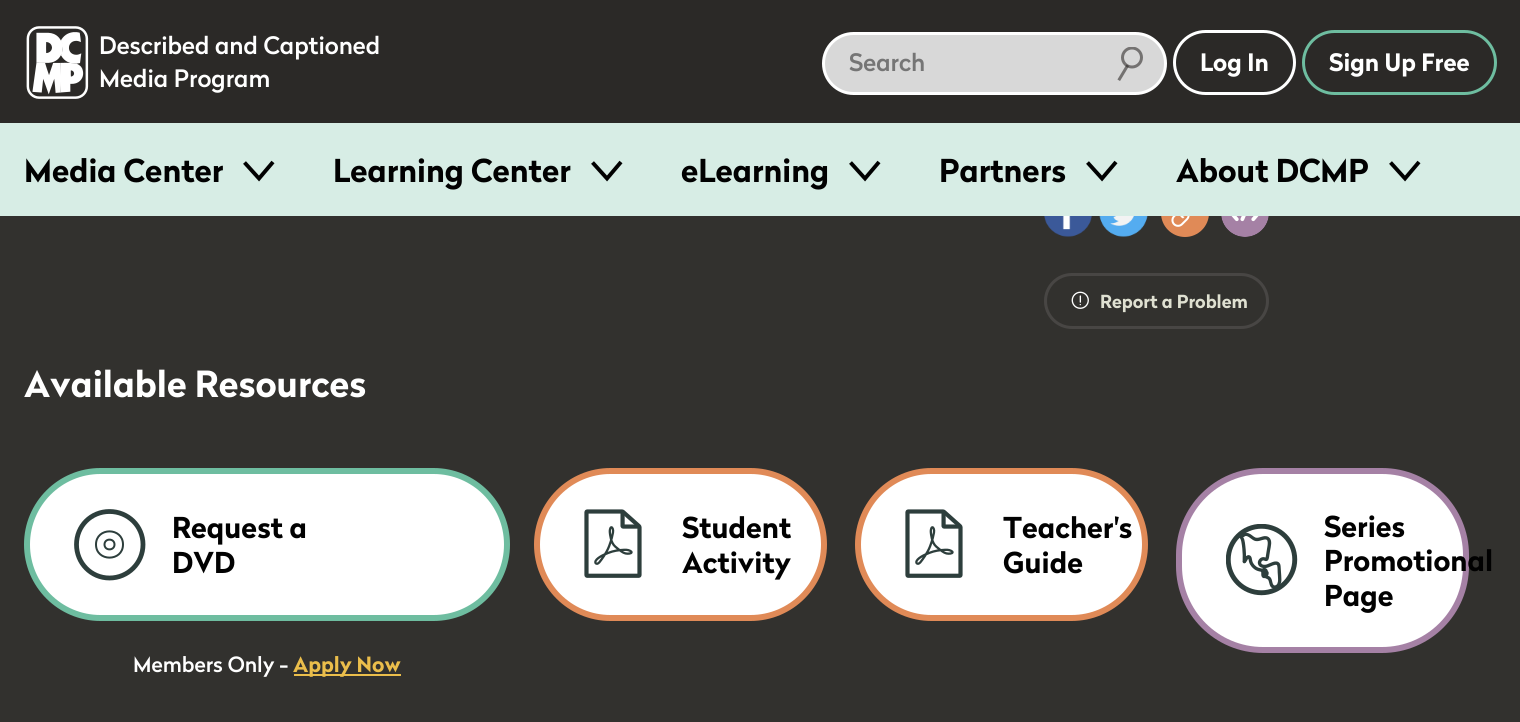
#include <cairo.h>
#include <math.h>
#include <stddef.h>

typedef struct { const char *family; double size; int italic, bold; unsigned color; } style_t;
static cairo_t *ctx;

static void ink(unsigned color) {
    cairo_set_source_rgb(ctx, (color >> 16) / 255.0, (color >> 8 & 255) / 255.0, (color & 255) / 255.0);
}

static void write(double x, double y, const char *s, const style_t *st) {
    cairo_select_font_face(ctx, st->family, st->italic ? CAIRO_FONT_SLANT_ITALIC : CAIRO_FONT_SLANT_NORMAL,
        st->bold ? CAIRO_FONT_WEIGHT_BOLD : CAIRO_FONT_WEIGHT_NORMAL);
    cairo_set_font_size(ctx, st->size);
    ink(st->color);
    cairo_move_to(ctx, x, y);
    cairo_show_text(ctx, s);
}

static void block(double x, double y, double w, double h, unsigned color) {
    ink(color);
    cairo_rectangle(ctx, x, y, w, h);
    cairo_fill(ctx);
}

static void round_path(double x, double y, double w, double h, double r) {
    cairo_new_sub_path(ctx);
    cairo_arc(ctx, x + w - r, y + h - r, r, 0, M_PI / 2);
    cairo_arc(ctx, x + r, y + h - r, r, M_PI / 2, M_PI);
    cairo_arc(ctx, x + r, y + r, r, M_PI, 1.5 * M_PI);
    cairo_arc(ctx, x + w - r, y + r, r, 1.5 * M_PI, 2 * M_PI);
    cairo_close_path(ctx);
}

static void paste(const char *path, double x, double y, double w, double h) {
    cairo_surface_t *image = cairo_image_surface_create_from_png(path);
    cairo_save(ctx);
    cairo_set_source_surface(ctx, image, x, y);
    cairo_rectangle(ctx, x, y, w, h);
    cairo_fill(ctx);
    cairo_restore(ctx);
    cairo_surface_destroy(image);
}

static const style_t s1 = {"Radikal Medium", 24, 0, 0, 0xffffff};
static const style_t s2 = {"Radikal Medium", 24, 0, 0, 0x757575};
static const style_t s3 = {"Radikal", 24, 0, 1, 0xffffff};
static const style_t s4 = {"Radikal", 31.5, 0, 1, 0x010101};
static const style_t s5 = {"Radikal", 18, 0, 1, 0xdfe0d1};
static const style_t s6 = {"Radikal", 36, 0, 1, 0xffffff};
static const style_t s7 = {"Radikal", 28.75, 0, 1, 0x010101};
static const style_t s8 = {"Radikal Medium", 21, 0, 0, 0xffffff};
static const style_t s9 = {"Radikal", 21, 0, 1, 0xebbe4b};

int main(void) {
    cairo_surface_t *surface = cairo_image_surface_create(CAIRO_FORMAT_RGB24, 1520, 722);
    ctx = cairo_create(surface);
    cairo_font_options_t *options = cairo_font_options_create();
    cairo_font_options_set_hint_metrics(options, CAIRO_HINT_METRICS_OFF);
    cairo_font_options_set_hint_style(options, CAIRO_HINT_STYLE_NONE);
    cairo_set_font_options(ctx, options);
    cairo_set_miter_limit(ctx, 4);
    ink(0x32312e);
    cairo_paint(ctx);
    block(0, 0, 1520, 123, 0x2b2927);
    paste("pic1.png", 26, 26, 63, 73);
    write(99, 54, "Described and Captioned", &s1);
    write(99, 87, "Media Program", &s1);
    ink(0xd8d8d8);
    round_path(823.5, 33.5, 342, 60, 30);
    cairo_fill_preserve(ctx);
    ink(0xffffff);
    cairo_set_line_width(ctx, 3);
    cairo_stroke(ctx);
    write(849, 71, "Search", &s2);
    cairo_save(ctx);
    cairo_rectangle(ctx, 1118, 47, 25, 34);
    cairo_clip(ctx);
    cairo_arc(ctx, 1132, 57.5, 9.5, 0, 2 * M_PI);
    ink(0x747271);
    cairo_stroke(ctx);
    cairo_restore(ctx);
    cairo_new_path(ctx);
    cairo_move_to(ctx, 1127, 66.5);
    cairo_line_to(ctx, 1119.5, 79);
    cairo_set_source_rgba(ctx, 0.169, 0.161, 0.153, 0.58);
    cairo_set_line_cap(ctx, CAIRO_LINE_CAP_SQUARE);
    cairo_stroke(ctx);
    round_path(1174.5, 31.5, 120, 62, 31);
    ink(0xffffff);
    cairo_set_line_cap(ctx, CAIRO_LINE_CAP_BUTT);
    cairo_stroke(ctx);
    write(1200, 71, "Log In", &s3);
    round_path(1303.5, 31.5, 192, 62, 31);
    ink(0x6ebda0);
    cairo_stroke(ctx);
    write(1329, 71, "Sign Up Free", &s3);
    ink(0xe08a57);
    cairo_new_path(ctx);
    cairo_arc(ctx, 1185, 213, 24, 0, 2 * M_PI);
    cairo_fill(ctx);
    block(0, 123, 1520, 93, 0xd7ede5);
    write(24, 182, "Media Center", &s4);
    cairo_new_path(ctx);
    cairo_move_to(ctx, 244.5, 162.5);
    cairo_line_to(ctx, 259, 178.5);
    cairo_line_to(ctx, 273, 162);
    cairo_set_line_width(ctx, 3.9);
    cairo_stroke(ctx);
    write(333, 182, "Learning Center", &s4);
    cairo_new_path(ctx);
    cairo_move_to(ctx, 592.5, 162.5);
    cairo_line_to(ctx, 607, 178.5);
    cairo_line_to(ctx, 621, 162);
    cairo_stroke(ctx);
    write(681, 182, "eLearning", &s4);
    cairo_new_path(ctx);
    cairo_move_to(ctx, 850.5, 162.5);
    cairo_line_to(ctx, 865, 178.5);
    cairo_line_to(ctx, 879, 162);
    cairo_stroke(ctx);
    write(939, 182, "Partners", &s4);
    cairo_new_path(ctx);
    cairo_move_to(ctx, 1087.5, 162.5);
    cairo_line_to(ctx, 1102, 178.5);
    cairo_line_to(ctx, 1116, 162);
    cairo_stroke(ctx);
    write(1176, 182, "About DCMP", &s4);
    cairo_new_path(ctx);
    cairo_move_to(ctx, 1390.5, 162.5);
    cairo_line_to(ctx, 1405, 178.5);
    cairo_line_to(ctx, 1419, 162);
    cairo_stroke(ctx);
    paste("pic2.png", 1044, 216, 48, 21);
    paste("pic3.png", 1099, 216, 49, 21);
    paste("pic4.png", 1171, 216, 19, 11);
    paste("pic5.png", 1221, 216, 48, 21);
    round_path(1045.5, 274.5, 222, 53, 26.5);
    ink(0x484644);
    cairo_set_line_width(ctx, 3);
    cairo_stroke(ctx);
    paste("pic6.png", 1071, 291, 18, 18);
    write(1100, 308, "Report a Problem", &s5);
    write(24, 397, "Available Resources", &s6);
    round_path(27, 471, 480, 147, 73.5);
    cairo_fill_preserve(ctx);
    ink(0x6ebda0);
    cairo_set_line_width(ctx, 6);
    cairo_stroke(ctx);
    cairo_new_path(ctx);
    cairo_move_to(ctx, 143, 544.5);
    cairo_curve_to(ctx, 143, 563, 128, 578, 109.5, 578);
    cairo_curve_to(ctx, 91, 578, 76.5, 563, 76.5, 544.5);
    cairo_curve_to(ctx, 76.5, 526, 91, 511.5, 109.5, 511.5);
    cairo_curve_to(ctx, 128, 511.5, 143, 526, 143, 544.5);
    cairo_close_path(ctx);
    ink(0x2d3e3c);
    cairo_set_line_width(ctx, 4.8);
    cairo_stroke(ctx);
    cairo_new_path(ctx);
    cairo_move_to(ctx, 123, 544.5);
    cairo_curve_to(ctx, 123, 562, 96, 562, 96, 544.5);
    cairo_curve_to(ctx, 96, 527, 123, 527, 123, 544.5);
    cairo_close_path(ctx);
    cairo_move_to(ctx, 114.5, 544.5);
    cairo_curve_to(ctx, 114.5, 551, 104.5, 551, 104.5, 544.5);
    cairo_curve_to(ctx, 104.5, 538, 114.5, 538, 114.5, 544.5);
    cairo_close_path(ctx);
    cairo_set_line_width(ctx, 2);
    cairo_stroke(ctx);
    write(172, 538, "Request a", &s7);
    write(172, 573, "DVD", &s7);
    write(133, 672, "Members Only -", &s8);
    block(294, 674, 107, 2, 0xebbe4b);
    write(293, 672, "Apply Now", &s9);
    ink(0xffffff);
    round_path(537, 471, 287, 147, 73.5);
    cairo_fill_preserve(ctx);
    ink(0xe08a57);
    cairo_set_line_width(ctx, 6);
    cairo_stroke(ctx);
    paste("pic7.png", 584, 509, 58, 69);
    write(682, 538, "Student", &s7);
    write(682, 573, "Activity", &s7);
    ink(0xffffff);
    round_path(858, 471, 287, 147, 73.5);
    cairo_fill_preserve(ctx);
    ink(0xe08a57);
    cairo_stroke(ctx);
    paste("pic7.png", 905, 509, 58, 69);
    write(1003, 538, "Teacher's", &s7);
    write(1003, 573, "Guide", &s7);
    ink(0xffffff);
    round_path(1179, 471, 287, 179, 84);
    cairo_fill_preserve(ctx);
    ink(0xa581a5);
    cairo_stroke(ctx);
    paste("pic8.png", 1226, 524, 72, 72);
    write(1324, 537, "Series", &s7);
    write(1324, 571, "Promotional", &s7);
    write(1324, 606, "Page", &s7);
    cairo_surface_write_to_png(surface, "screenshot.png");
    cairo_font_options_destroy(options);
    cairo_destroy(ctx);
    cairo_surface_destroy(surface);
    return 0;
}
